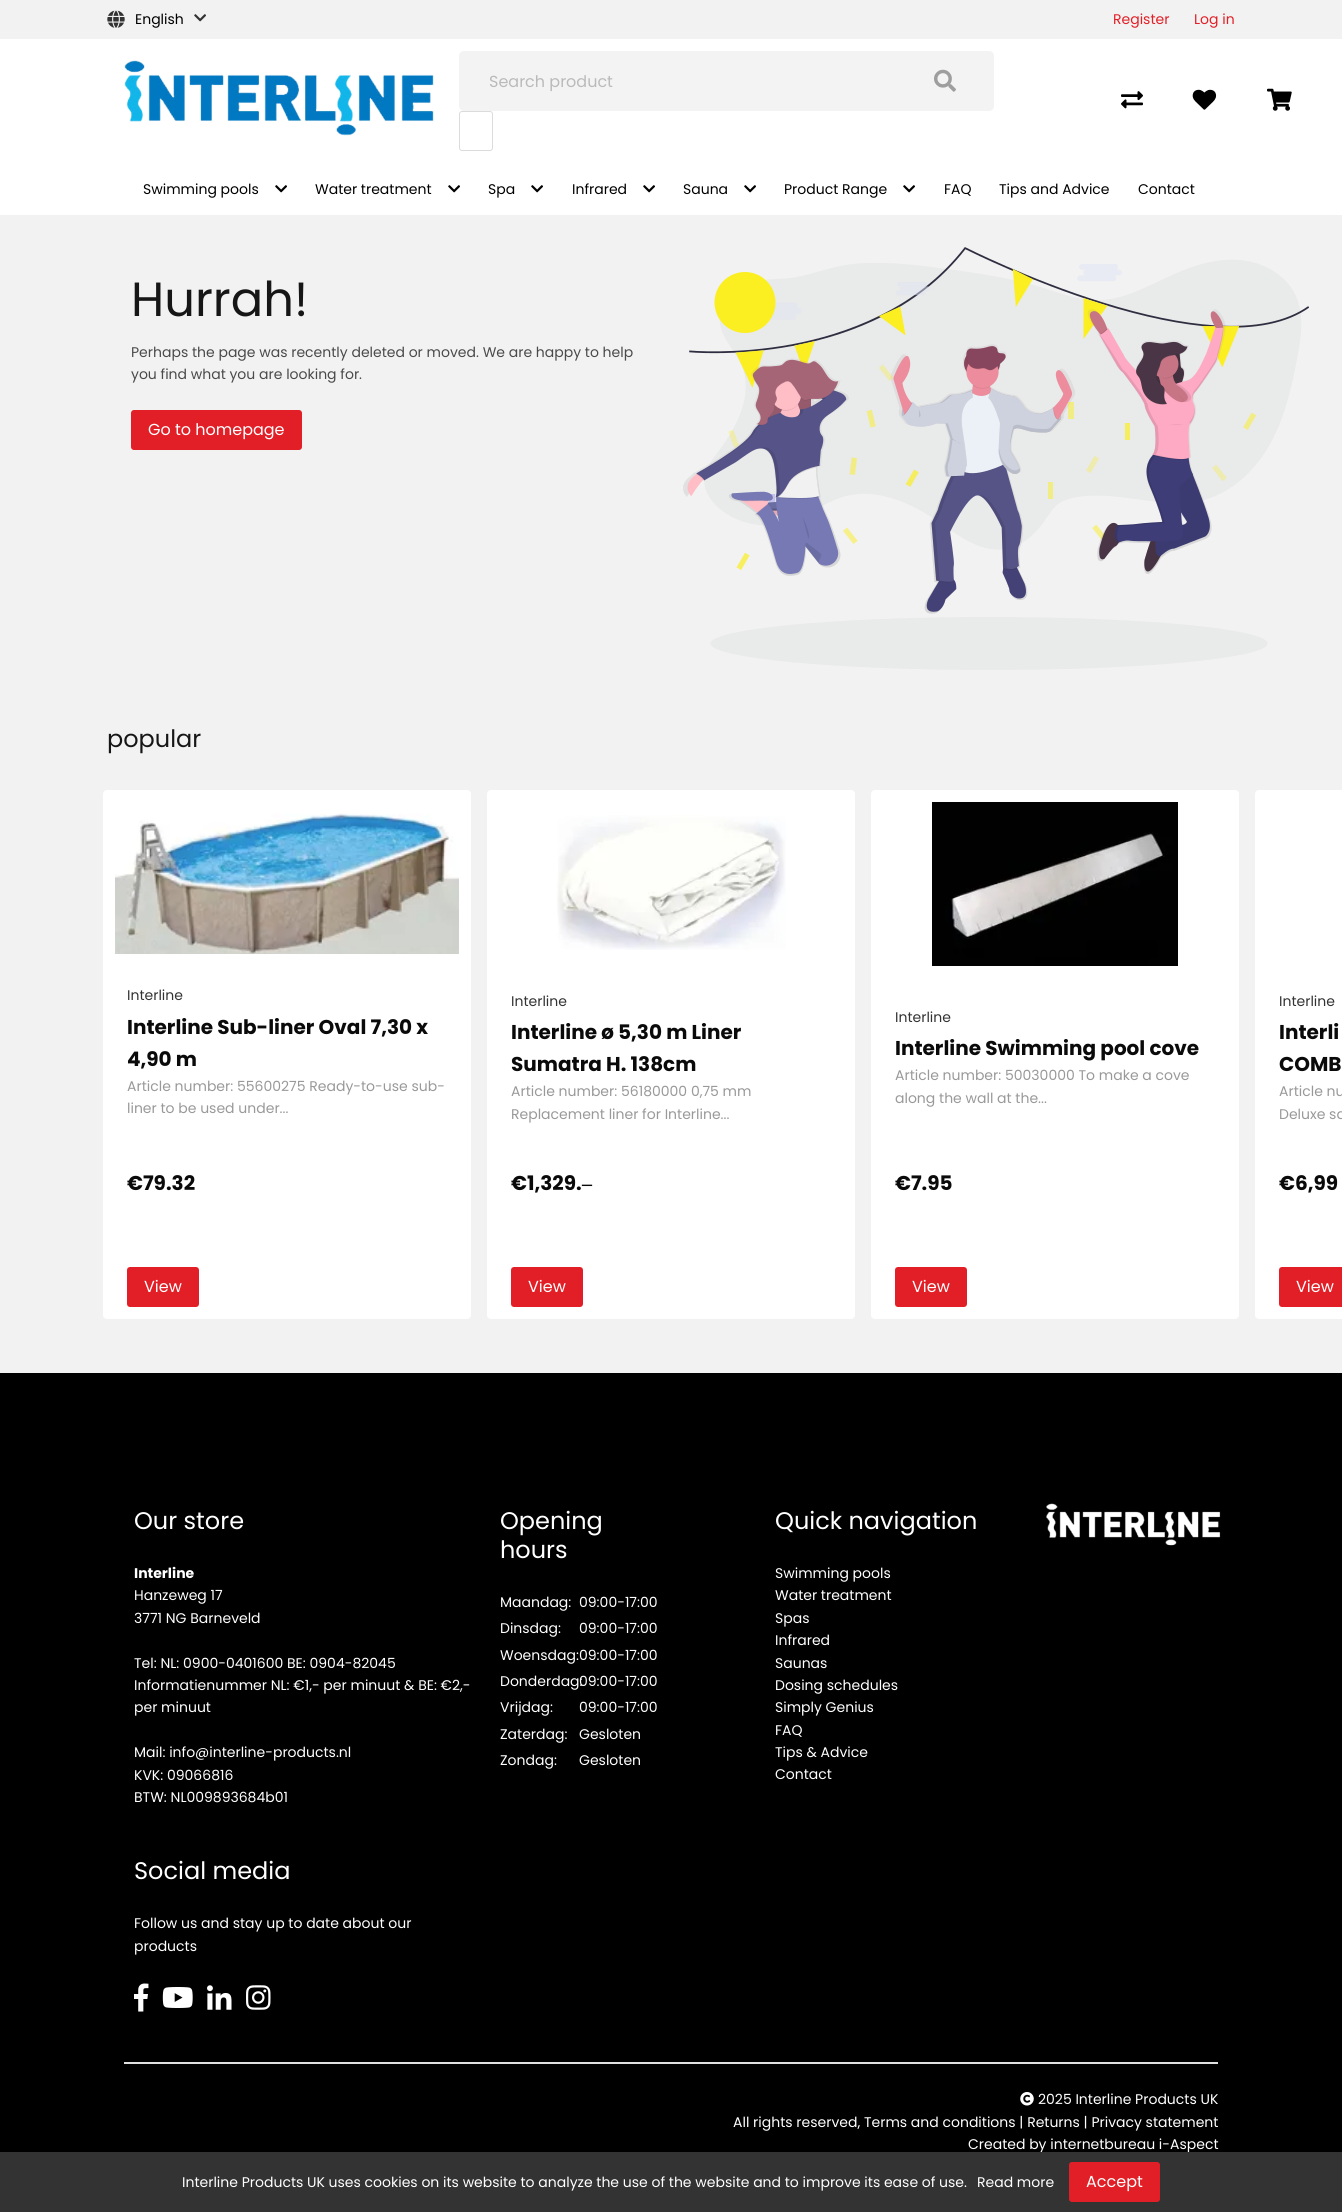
#include <cairo.h>
#include <math.h>
#include <stddef.h>

typedef struct { const char *family; double size; int italic, bold; unsigned color; } style_t;
static cairo_t *ctx;

static void ink(unsigned color) {
    cairo_set_source_rgb(ctx, (color >> 16) / 255.0, (color >> 8 & 255) / 255.0, (color & 255) / 255.0);
}

static void write(double x, double y, const char *s, const style_t *st) {
    cairo_select_font_face(ctx, st->family, st->italic ? CAIRO_FONT_SLANT_ITALIC : CAIRO_FONT_SLANT_NORMAL,
        st->bold ? CAIRO_FONT_WEIGHT_BOLD : CAIRO_FONT_WEIGHT_NORMAL);
    cairo_set_font_size(ctx, st->size);
    ink(st->color);
    cairo_move_to(ctx, x, y);
    cairo_show_text(ctx, s);
}

static void block(double x, double y, double w, double h, unsigned color) {
    ink(color);
    cairo_rectangle(ctx, x, y, w, h);
    cairo_fill(ctx);
}

static void round_path(double x, double y, double w, double h, double r) {
    cairo_new_sub_path(ctx);
    cairo_arc(ctx, x + w - r, y + h - r, r, 0, M_PI / 2);
    cairo_arc(ctx, x + r, y + h - r, r, M_PI / 2, M_PI);
    cairo_arc(ctx, x + r, y + r, r, M_PI, 1.5 * M_PI);
    cairo_arc(ctx, x + w - r, y + r, r, 1.5 * M_PI, 2 * M_PI);
    cairo_close_path(ctx);
}

static void paste(const char *path, double x, double y, double w, double h) {
    cairo_surface_t *image = cairo_image_surface_create_from_png(path);
    cairo_save(ctx);
    cairo_set_source_surface(ctx, image, x, y);
    cairo_rectangle(ctx, x, y, w, h);
    cairo_fill(ctx);
    cairo_restore(ctx);
    cairo_surface_destroy(image);
}

static const style_t s1 = {"Poppins", 14, 0, 0, 0x000000};
static const style_t s2 = {"Poppins", 14, 0, 0, 0xe21f26};
static const style_t s3 = {"Poppins", 16, 0, 0, 0xbababa};
static const style_t s4 = {"Poppins", 48, 0, 0, 0x161616};
static const style_t s5 = {"Poppins", 14, 0, 0, 0x4a4a4a};
static const style_t s6 = {"Poppins", 16, 0, 0, 0xffffff};
static const style_t s7 = {"Poppins", 24, 0, 0, 0x161616};
static const style_t s8 = {"Poppins", 14, 0, 0, 0x333333};
static const style_t s9 = {"Poppins", 20, 0, 1, 0x0a0a0a};
static const style_t s10 = {"Poppins", 14, 0, 0, 0x999999};
static const style_t s11 = {"Liberation Serif", 20, 0, 1, 0x0a0a0a};
static const style_t s12 = {"Poppins", 24, 0, 0, 0xffffff};
static const style_t s13 = {"Poppins", 14, 0, 1, 0xffffff};
static const style_t s14 = {"Poppins", 14, 0, 0, 0xffffff};

int main(void) {
    cairo_surface_t *surface = cairo_image_surface_create(CAIRO_FORMAT_RGB24, 1342, 2212);
    ctx = cairo_create(surface);
    cairo_font_options_t *options = cairo_font_options_create();
    cairo_font_options_set_hint_metrics(options, CAIRO_HINT_METRICS_OFF);
    cairo_font_options_set_hint_style(options, CAIRO_HINT_STYLE_NONE);
    cairo_set_font_options(ctx, options);
    cairo_set_miter_limit(ctx, 4);
    ink(0xf2f2f2);
    cairo_paint(ctx);
    paste("pic1.png", 107, 10, 18, 18);
    write(135, 24, "English", &s1);
    paste("pic2.png", 194, 14, 12, 8);
    write(1113, 24, "Register", &s2);
    write(1194, 24, "Log in", &s2);
    block(0, 39, 1342, 176, 0xffffff);
    paste("pic3.png", 124, 60, 310, 76);
    ink(0xf3f3f3);
    round_path(459, 51, 535, 60, 5);
    cairo_fill(ctx);
    write(489, 87, "Search product", &s3);
    round_path(459.5, 111.5, 33, 39, 2.5);
    ink(0xdbdbdb);
    cairo_set_line_width(ctx, 1);
    cairo_stroke(ctx);
    paste("pic4.png", 934, 69, 22, 23);
    paste("pic5.png", 1121, 91, 22, 18);
    paste("pic6.png", 1192, 89, 25, 21);
    paste("pic7.png", 1267, 88, 25, 23);
    write(143, 194, "Swimming pools", &s1);
    paste("pic8.png", 275, 185, 12, 8);
    write(315, 194, "Water treatment", &s1);
    paste("pic8.png", 448, 185, 12, 8);
    write(488, 194, "Spa", &s1);
    paste("pic8.png", 531, 185, 12, 8);
    write(572, 194, "Infrared", &s1);
    paste("pic8.png", 643, 185, 12, 8);
    write(683, 194, "Sauna", &s1);
    paste("pic8.png", 744, 185, 12, 8);
    write(784, 194, "Product Range", &s1);
    paste("pic8.png", 903, 185, 12, 8);
    write(944, 194, "FAQ", &s1);
    write(999, 194, "Tips and Advice", &s1);
    write(1138, 194, "Contact", &s1);
    write(131, 316, "Hurrah!", &s4);
    write(131, 357, "Perhaps the page was recently deleted or moved. We are happy to help", &s5);
    write(131, 379, "you find what you are looking for.", &s5);
    ink(0xe21f26);
    round_path(131, 410, 171, 40, 3);
    cairo_fill(ctx);
    write(148, 435, "Go to homepage", &s6);
    paste("pic9.png", 683, 247, 626, 423);
    write(107, 747, "popular", &s7);
    ink(0xffffff);
    round_path(103, 790, 368, 529, 4);
    cairo_fill(ctx);
    paste("pic10.png", 115, 813, 344, 141);
    write(127, 1000, "Interline", &s8);
    write(127, 1034, "Interline Sub-liner Oval 7,30 x", &s9);
    write(127, 1066, "4,90 m", &s9);
    write(127, 1091, "Article number: 55600275 Ready-to-use sub-", &s10);
    write(127, 1113, "liner to be used under...", &s10);
    write(127, 1190, "€79.32", &s9);
    ink(0xe21f26);
    round_path(127, 1267, 72, 40, 3);
    cairo_fill(ctx);
    write(144, 1292, "View", &s6);
    round_path(487, 790, 368, 529, 4);
    cairo_fill(ctx);
    paste("pic11.png", 557, 815, 229, 135);
    write(511, 1006, "Interline", &s8);
    write(511, 1039, "Interline ø 5,30 m Liner", &s9);
    write(511, 1071, "Sumatra H. 138cm", &s9);
    write(511, 1096, "Article number: 56180000 0,75 mm", &s10);
    write(511, 1119, "Replacement liner for Interline...", &s10);
    write(511, 1190, "€1,329.", &s9);
    write(582, 1190, "‒", &s11);
    ink(0xe21f26);
    round_path(511, 1267, 72, 40, 3);
    cairo_fill(ctx);
    write(528, 1292, "View", &s6);
    round_path(871, 790, 368, 529, 4);
    cairo_fill(ctx);
    paste("pic12.png", 932, 802, 246, 164);
    write(895, 1022, "Interline", &s8);
    write(895, 1055, "Interline Swimming pool cove", &s9);
    write(895, 1080, "Article number: 50030000 To make a cove", &s10);
    write(895, 1103, "along the wall at the...", &s10);
    write(895, 1190, "€7.95", &s9);
    ink(0xe21f26);
    round_path(895, 1267, 72, 40, 3);
    cairo_fill(ctx);
    write(912, 1292, "View", &s6);
    round_path(1255, 790, 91, 529, 4);
    cairo_fill(ctx);
    write(1279, 1006, "Interline", &s8);
    write(1279, 1039, "Interli", &s9);
    write(1279, 1071, "COMB", &s9);
    write(1279, 1096, "Article nu", &s10);
    write(1279, 1119, "Deluxe sa", &s10);
    write(1279, 1190, "€6,99", &s9);
    ink(0xe21f26);
    round_path(1279, 1267, 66, 40, 3);
    cairo_fill(ctx);
    write(1296, 1292, "View", &s6);
    block(0, 1373, 1342, 779, 0x000000);
    write(134, 1529, "Our store", &s12);
    write(134, 1578, "Interline", &s13);
    write(134, 1600, "Hanzeweg 17", &s14);
    write(134, 1623, "3771 NG Barneveld", &s14);
    write(134, 1668, "Tel: NL: 0900-0401600 BE: 0904-82045", &s14);
    write(134, 1690, "Informatienummer NL: €1,- per minuut & BE: €2,-", &s14);
    write(134, 1712, "per minuut", &s14);
    write(134, 1757, "Mail: info@interline-products.nl", &s14);
    write(134, 1780, "KVK: 09066816", &s14);
    write(134, 1802, "BTW: NL009893684b01", &s14);
    write(134, 1879, "Social media", &s12);
    write(134, 1928, "Follow us and stay up to date about our", &s14);
    write(134, 1951, "products", &s14);
    paste("pic13.png", 134, 1983, 15, 29);
    paste("pic14.png", 162, 1987, 31, 21);
    paste("pic15.png", 207, 1985, 25, 25);
    paste("pic16.png", 246, 1985, 25, 25);
    write(500, 1529, "Opening", &s12);
    write(500, 1558, "hours", &s12);
    write(500, 1607, "Maandag:", &s14);
    write(579, 1607, "09:00-17:00", &s14);
    write(500, 1633, "Dinsdag:", &s14);
    write(579, 1633, "09:00-17:00", &s14);
    write(500, 1660, "Woensdag:", &s14);
    write(579, 1660, "09:00-17:00", &s14);
    write(500, 1686, "Donderdag:", &s14);
    write(579, 1686, "09:00-17:00", &s14);
    write(500, 1712, "Vrijdag:", &s14);
    write(579, 1712, "09:00-17:00", &s14);
    write(500, 1739, "Zaterdag:", &s14);
    write(579, 1739, "Gesloten", &s14);
    write(500, 1765, "Zondag:", &s14);
    write(579, 1765, "Gesloten", &s14);
    write(775, 1529, "Quick navigation", &s12);
    write(775, 1578, "Swimming pools", &s14);
    write(775, 1600, "Water treatment", &s14);
    write(775, 1623, "Spas", &s14);
    write(775, 1645, "Infrared", &s14);
    write(775, 1668, "Saunas", &s14);
    write(775, 1690, "Dosing schedules", &s14);
    write(775, 1712, "Simply Genius", &s14);
    write(775, 1735, "FAQ", &s14);
    write(775, 1757, "Tips & Advice", &s14);
    write(775, 1779, "Contact", &s14);
    paste("pic17.png", 1046, 1503, 175, 43);
    block(124, 2062, 1094, 2, 0xe0e0e0);
    paste("pic18.png", 1020, 2092, 14, 14);
    write(1038, 2104, "2025 Interline Products UK", &s14);
    write(733, 2127, "All rights reserved, Terms and conditions | Returns | Privacy statement", &s14);
    write(968, 2149, "Created by internetbureau i-Aspect", &s14);
    block(0, 2152, 1342, 60, 0x333333);
    write(182, 2187, "Interline Products UK uses cookies on its website to analyze the use of the website and to improve its ease of use.", &s14);
    write(977, 2187, "Read more", &s14);
    ink(0xe21f26);
    round_path(1069, 2162, 91, 40, 3);
    cairo_fill(ctx);
    write(1086, 2187, "Accept", &s6);
    cairo_surface_write_to_png(surface, "screenshot.png");
    cairo_font_options_destroy(options);
    cairo_destroy(ctx);
    cairo_surface_destroy(surface);
    return 0;
}
